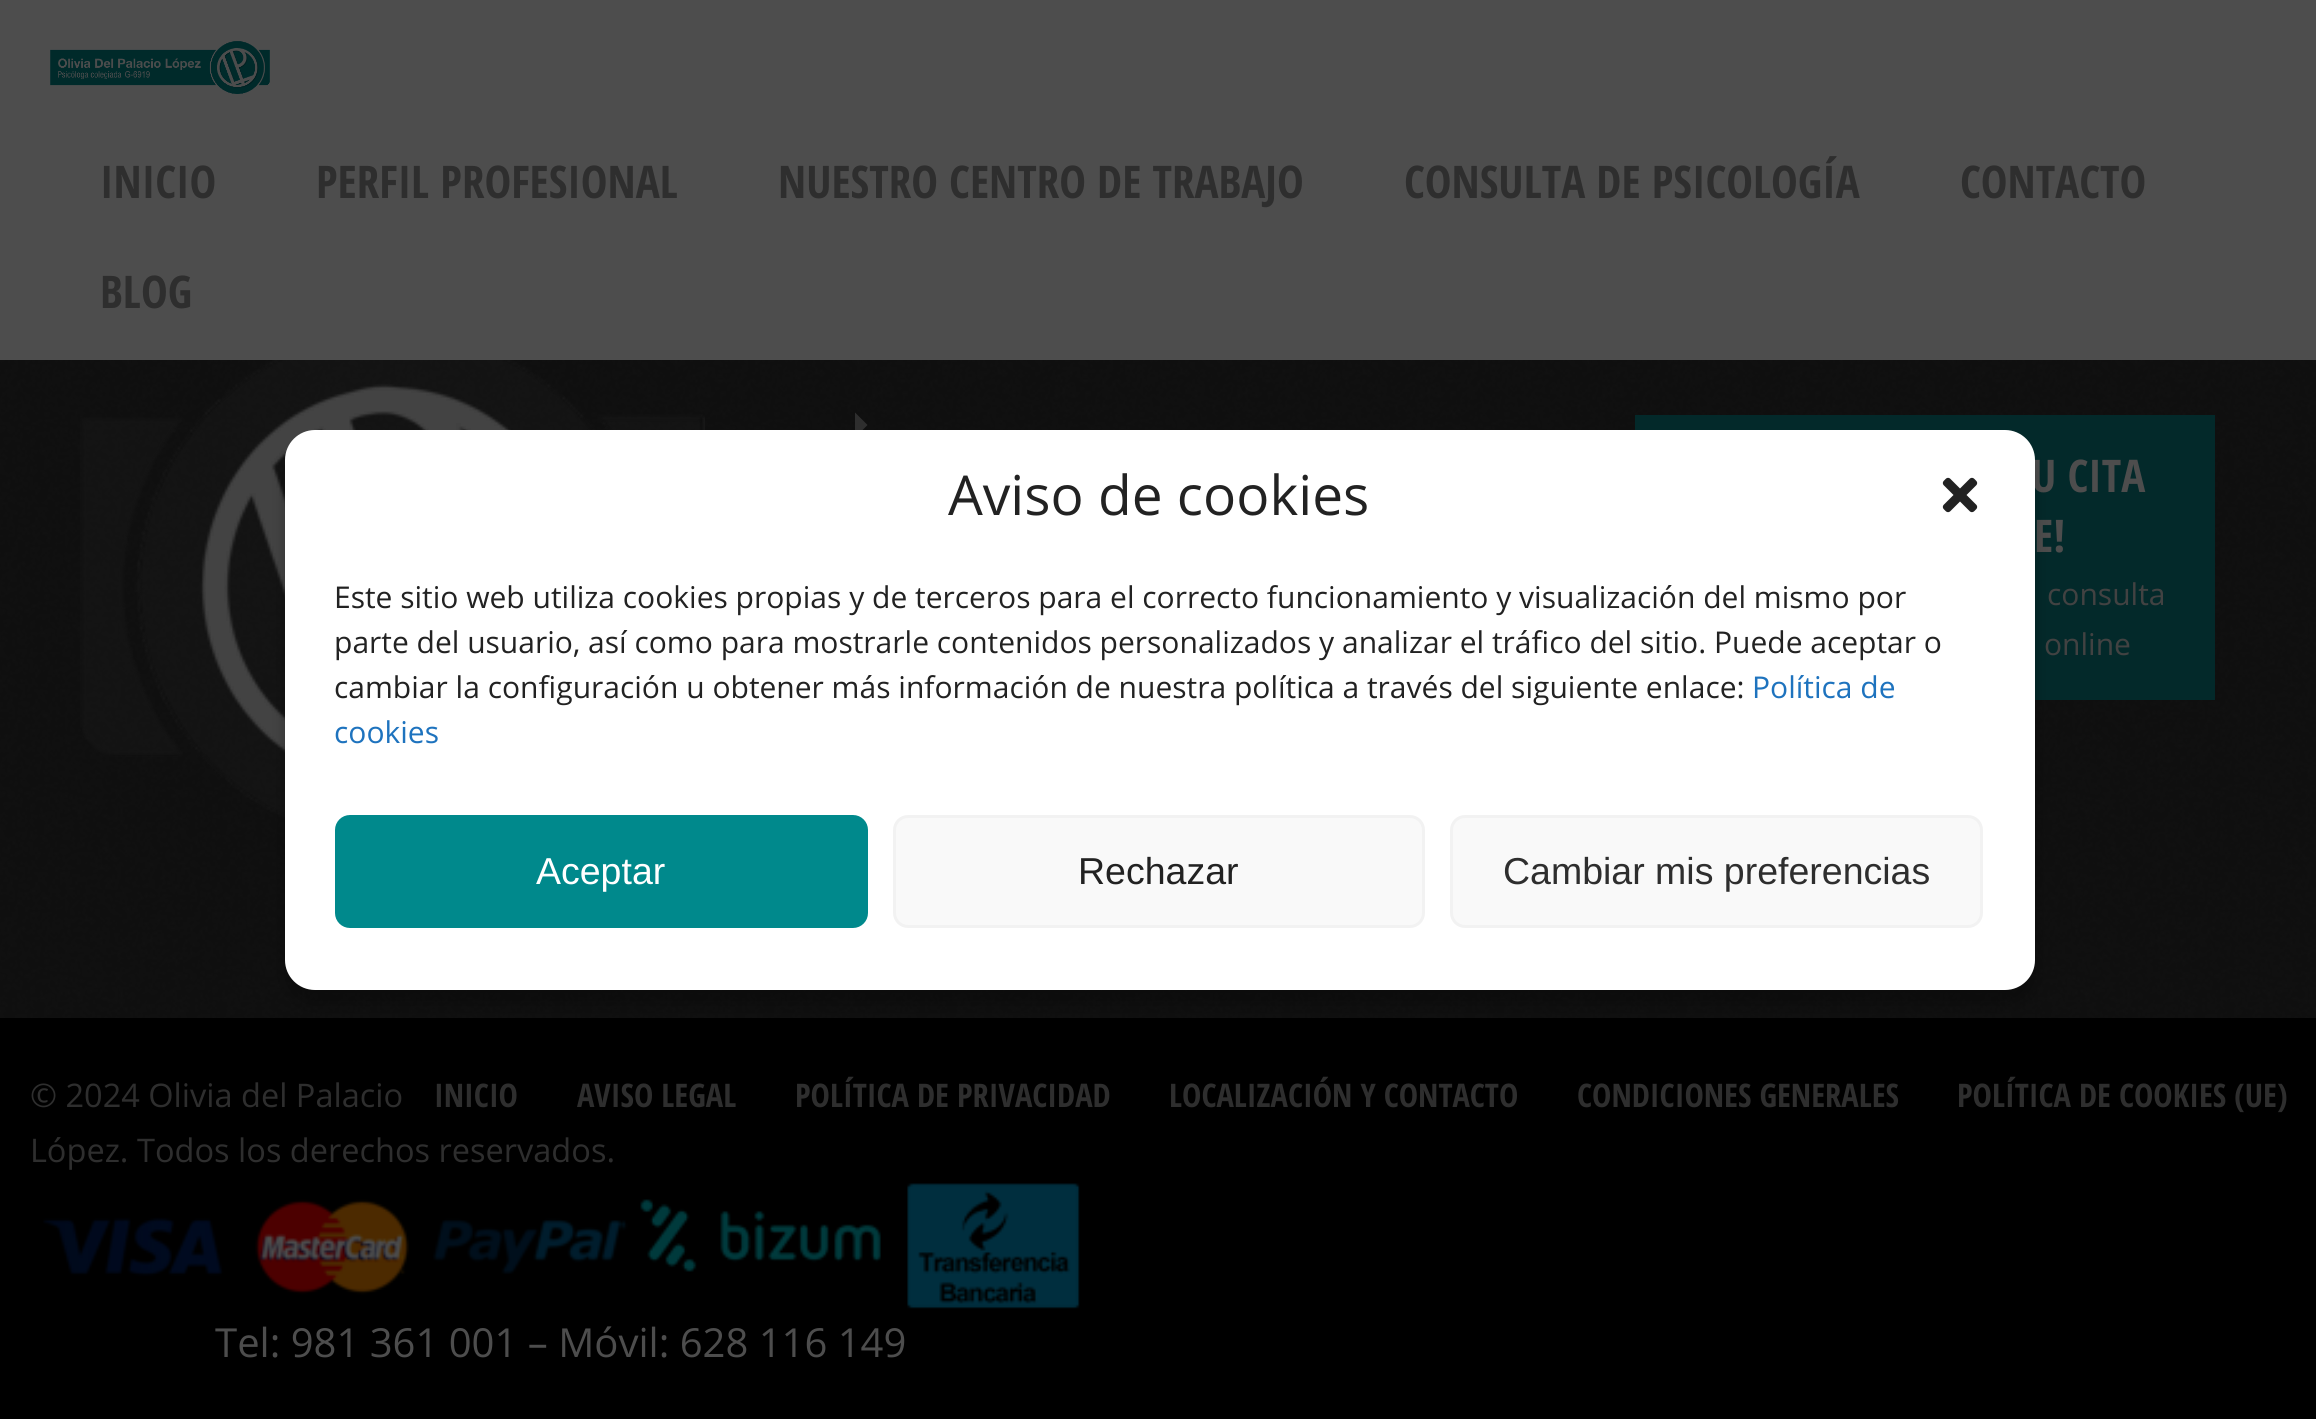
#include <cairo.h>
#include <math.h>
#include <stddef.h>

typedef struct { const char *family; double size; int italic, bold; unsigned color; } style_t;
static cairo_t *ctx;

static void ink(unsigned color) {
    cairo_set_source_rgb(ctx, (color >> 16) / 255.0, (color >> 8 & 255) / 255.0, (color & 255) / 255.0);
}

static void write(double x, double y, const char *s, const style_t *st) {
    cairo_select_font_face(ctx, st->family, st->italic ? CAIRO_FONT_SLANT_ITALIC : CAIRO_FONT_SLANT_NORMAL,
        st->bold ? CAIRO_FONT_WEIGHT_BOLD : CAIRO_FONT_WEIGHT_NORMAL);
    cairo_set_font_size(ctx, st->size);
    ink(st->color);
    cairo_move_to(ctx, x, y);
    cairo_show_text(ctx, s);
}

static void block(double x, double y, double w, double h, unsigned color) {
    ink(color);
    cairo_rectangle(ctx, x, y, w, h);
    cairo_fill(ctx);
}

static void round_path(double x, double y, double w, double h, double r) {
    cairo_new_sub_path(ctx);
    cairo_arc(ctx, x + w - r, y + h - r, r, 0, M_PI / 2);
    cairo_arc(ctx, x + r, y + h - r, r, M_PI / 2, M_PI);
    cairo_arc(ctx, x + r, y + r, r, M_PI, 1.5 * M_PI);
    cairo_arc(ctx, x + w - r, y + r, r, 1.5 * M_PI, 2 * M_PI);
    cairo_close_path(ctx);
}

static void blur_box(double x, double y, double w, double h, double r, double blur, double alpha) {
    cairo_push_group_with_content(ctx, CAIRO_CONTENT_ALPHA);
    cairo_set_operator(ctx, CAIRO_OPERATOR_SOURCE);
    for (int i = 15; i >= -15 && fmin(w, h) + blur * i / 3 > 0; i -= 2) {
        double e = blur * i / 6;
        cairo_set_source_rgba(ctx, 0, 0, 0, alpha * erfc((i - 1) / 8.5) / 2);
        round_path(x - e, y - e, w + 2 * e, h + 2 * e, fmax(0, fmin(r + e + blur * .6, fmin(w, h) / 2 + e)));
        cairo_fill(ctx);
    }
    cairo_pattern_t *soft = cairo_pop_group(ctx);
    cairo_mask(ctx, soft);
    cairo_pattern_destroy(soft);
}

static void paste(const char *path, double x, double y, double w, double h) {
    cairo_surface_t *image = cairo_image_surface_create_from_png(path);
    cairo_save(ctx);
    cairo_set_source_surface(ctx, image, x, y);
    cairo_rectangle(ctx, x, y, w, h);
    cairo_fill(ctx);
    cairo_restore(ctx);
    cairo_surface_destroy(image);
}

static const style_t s1 = {"Open Sans Condensed", 45, 0, 1, 0x2e2e2e};
static const style_t s2 = {"Open Sans Condensed", 45, 0, 1, 0x4d4d4d};
static const style_t s3 = {"Open Sans", 30, 0, 0, 0x424242};
static const style_t s4 = {"Open Sans Condensed", 32.5, 0, 1, 0x2e2e2e};
static const style_t s5 = {"Open Sans", 32.5, 0, 0, 0x2e2e2e};
static const style_t s6 = {"Open Sans", 40, 0, 0, 0x4d4d4d};
static const style_t s7 = {"Open Sans", 55, 0, 0, 0x222222};
static const style_t s8 = {"Open Sans", 30, 0, 0, 0x222222};
static const style_t s9 = {"Open Sans", 30, 0, 0, 0x1e73be};
static const style_t s10 = {"Liberation Sans", 37.5, 0, 0, 0xffffff};
static const style_t s11 = {"Liberation Sans", 37.5, 0, 0, 0x222222};
static const style_t s12 = {"Liberation Sans", 37.5, 0, 0, 0x2e2e2e};

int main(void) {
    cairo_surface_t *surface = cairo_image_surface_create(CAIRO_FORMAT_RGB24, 2316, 1419);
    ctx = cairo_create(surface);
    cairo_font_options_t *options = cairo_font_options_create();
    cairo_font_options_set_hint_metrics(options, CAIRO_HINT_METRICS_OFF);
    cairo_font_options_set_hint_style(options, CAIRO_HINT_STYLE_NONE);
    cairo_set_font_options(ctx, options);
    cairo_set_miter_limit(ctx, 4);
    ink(0x0f0f0f);
    cairo_paint(ctx);
    block(0, 0, 2316, 360, 0x4d4d4d);
    paste("pic1.png", 50, 41, 220, 53);
    write(100, 198, "INICIO", &s1);
    write(316, 198, "PERFIL PROFESIONAL", &s1);
    write(778, 198, "NUESTRO CENTRO DE TRABAJO", &s1);
    write(1404, 198, "CONSULTA DE PSICOLOGÍA", &s1);
    write(1960, 198, "CONTACTO", &s1);
    write(100, 308, "BLOG", &s1);
    paste("pic2.png", 0, 360, 2316, 658);
    paste("pic3.png", 80, 360, 625, 459);
    cairo_new_path(ctx);
    cairo_move_to(ctx, 855, 437.5);
    cairo_line_to(ctx, 855, 412.5);
    cairo_line_to(ctx, 867.5, 425);
    cairo_close_path(ctx);
    cairo_fill(ctx);
    block(1635, 415, 580, 285, 0x03292a);
    write(2031, 492, "U CITA", &s2);
    write(2034, 552, "E!", &s2);
    write(2047, 605, "consulta", &s3);
    write(2044, 655, "online", &s3);
    block(0, 1018, 2316, 401, 0x000000);
    write(434, 1107, "INICIO", &s4);
    write(577, 1107, "AVISO LEGAL", &s4);
    write(795, 1107, "POLÍTICA DE PRIVACIDAD", &s4);
    write(1169, 1107, "LOCALIZACIÓN Y CONTACTO", &s4);
    write(1577, 1107, "CONDICIONES GENERALES", &s4);
    write(1957, 1107, "POLÍTICA DE COOKIES (UE)", &s4);
    write(30, 1107, "© 2024 Olivia del Palacio", &s5);
    write(30, 1162, "López. Todos los derechos reservados.", &s5);
    paste("pic4.png", 43, 1183, 1037, 126);
    write(215, 1357, "Tel: 981 361 001 – Móvil: 628 116 149", &s6);
    ink(0x000000);
    blur_box(285, 445, 1750, 560, 30, 7.5, 0.23);
    ink(0xffffff);
    round_path(285, 430, 1750, 560, 30);
    cairo_fill(ctx);
    write(948, 515, "Aviso de cookies", &s7);
    paste("pic5.png", 1942, 477, 36, 36);
    write(334, 608, "Este sitio web utiliza cookies propias y de terceros para el correcto funcionamiento y visualización del mismo por", &s8);
    write(334, 653, "parte del usuario, así como para mostrarle contenidos personalizados y analizar el tráfico del sitio. Puede aceptar o", &s8);
    write(334, 698, "cambiar la configuración u obtener más información de nuestra política a través del siguiente enlace:", &s8);
    write(1752, 698, "Política de", &s9);
    write(334, 743, "cookies", &s9);
    ink(0x00898c);
    round_path(336.5, 816.5, 530, 110, 13.5);
    cairo_fill_preserve(ctx);
    cairo_set_line_width(ctx, 3);
    cairo_stroke(ctx);
    write(536, 884, "Aceptar", &s10);
    ink(0xf9f9f9);
    round_path(894.5, 816.5, 529, 110, 13.5);
    cairo_fill_preserve(ctx);
    ink(0xf2f2f2);
    cairo_stroke(ctx);
    write(1078, 884, "Rechazar", &s11);
    ink(0xf9f9f9);
    round_path(1451.5, 816.5, 530, 110, 13.5);
    cairo_fill_preserve(ctx);
    ink(0xf2f2f2);
    cairo_stroke(ctx);
    write(1503, 884, "Cambiar mis preferencias", &s12);
    cairo_surface_write_to_png(surface, "screenshot.png");
    cairo_font_options_destroy(options);
    cairo_destroy(ctx);
    cairo_surface_destroy(surface);
    return 0;
}
